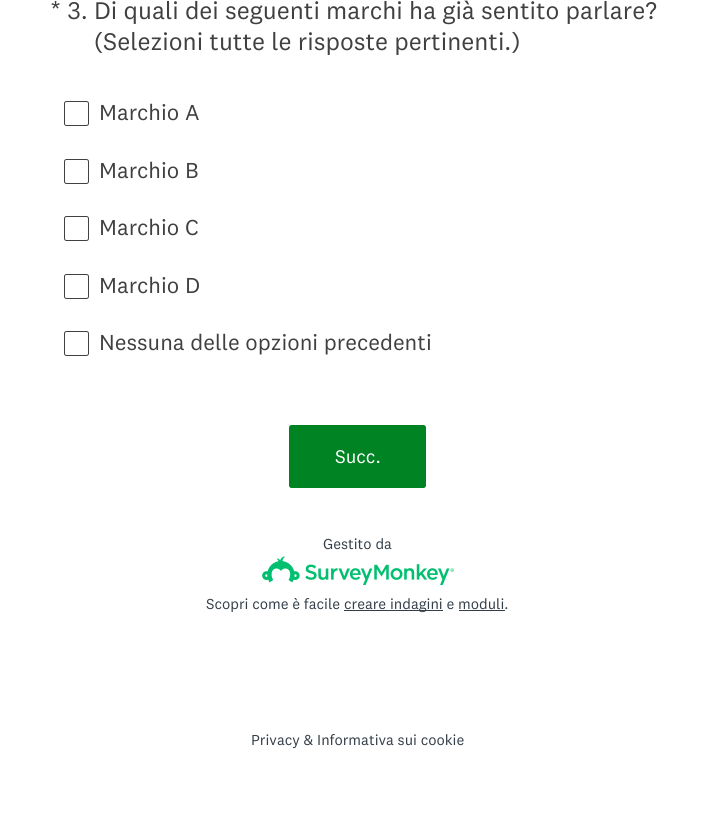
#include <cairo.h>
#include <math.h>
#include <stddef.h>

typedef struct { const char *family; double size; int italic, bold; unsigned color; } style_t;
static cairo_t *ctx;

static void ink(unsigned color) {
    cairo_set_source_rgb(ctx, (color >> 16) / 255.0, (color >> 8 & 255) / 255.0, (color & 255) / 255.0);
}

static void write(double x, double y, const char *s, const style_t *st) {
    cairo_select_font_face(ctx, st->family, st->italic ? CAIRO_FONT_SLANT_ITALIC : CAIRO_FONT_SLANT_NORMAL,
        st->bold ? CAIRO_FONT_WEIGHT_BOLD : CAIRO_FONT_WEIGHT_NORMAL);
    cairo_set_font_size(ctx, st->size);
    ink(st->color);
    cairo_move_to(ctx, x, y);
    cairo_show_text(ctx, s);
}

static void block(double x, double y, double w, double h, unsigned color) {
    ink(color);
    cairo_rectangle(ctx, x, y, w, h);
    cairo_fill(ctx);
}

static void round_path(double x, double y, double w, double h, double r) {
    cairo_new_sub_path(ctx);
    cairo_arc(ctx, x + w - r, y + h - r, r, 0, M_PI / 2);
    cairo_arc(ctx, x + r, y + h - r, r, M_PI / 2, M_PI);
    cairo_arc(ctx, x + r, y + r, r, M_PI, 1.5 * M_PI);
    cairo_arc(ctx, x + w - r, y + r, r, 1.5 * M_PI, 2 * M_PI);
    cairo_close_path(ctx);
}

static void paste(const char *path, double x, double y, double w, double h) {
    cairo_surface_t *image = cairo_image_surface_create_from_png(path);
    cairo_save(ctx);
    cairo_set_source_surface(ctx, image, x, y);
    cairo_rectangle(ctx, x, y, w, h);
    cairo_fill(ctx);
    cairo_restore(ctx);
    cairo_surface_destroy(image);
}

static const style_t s1 = {"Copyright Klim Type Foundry", 25, 0, 0, 0x404040};
static const style_t s2 = {"Copyright Klim Type Foundry", 22.5, 0, 0, 0x404040};
static const style_t s3 = {"Copyright Klim Type Foundry", 19, 0, 0, 0xffffff};
static const style_t s4 = {"Copyright Klim Type Foundry", 15, 0, 0, 0x333e48};

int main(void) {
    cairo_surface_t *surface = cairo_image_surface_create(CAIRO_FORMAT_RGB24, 714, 816);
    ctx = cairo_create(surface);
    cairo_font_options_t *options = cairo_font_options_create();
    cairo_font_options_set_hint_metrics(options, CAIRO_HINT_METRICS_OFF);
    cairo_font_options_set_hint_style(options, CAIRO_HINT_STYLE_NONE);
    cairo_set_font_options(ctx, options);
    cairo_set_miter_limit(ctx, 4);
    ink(0xffffff);
    cairo_paint(ctx);
    write(50, 19, "* 3. Di quali dei seguenti marchi ha già sentito parlare?", &s1);
    write(94, 50, "(Selezioni tutte le risposte pertinenti.)", &s1);
    round_path(64.5, 101.5, 24, 24, 2);
    cairo_set_line_width(ctx, 1);
    cairo_stroke(ctx);
    write(99, 120, "Marchio A", &s2);
    round_path(64.5, 159.5, 24, 24, 2);
    cairo_stroke(ctx);
    write(99, 178, "Marchio B", &s2);
    round_path(64.5, 216.5, 24, 24, 2);
    cairo_stroke(ctx);
    write(99, 235, "Marchio C", &s2);
    round_path(64.5, 274.5, 24, 24, 2);
    cairo_stroke(ctx);
    write(99, 293, "Marchio D", &s2);
    round_path(64.5, 331.5, 24, 24, 2);
    cairo_stroke(ctx);
    write(99, 350, "Nessuna delle opzioni precedenti", &s2);
    ink(0x008323);
    round_path(289, 425, 137, 63, 2.5);
    cairo_fill(ctx);
    write(335, 463, "Succ.", &s3);
    write(323, 549, "Gestito da", &s4);
    paste("pic1.png", 262, 556, 193, 29);
    write(206, 609, "Scopri come è facile", &s4);
    block(344, 610, 99, 1, 0x333e48);
    write(344, 609, "creare indagini e moduli.", &s4);
    block(459, 610, 46, 1, 0x333e48);
    write(251, 745, "Privacy & Informativa sui cookie", &s4);
    cairo_surface_write_to_png(surface, "screenshot.png");
    cairo_font_options_destroy(options);
    cairo_destroy(ctx);
    cairo_surface_destroy(surface);
    return 0;
}
